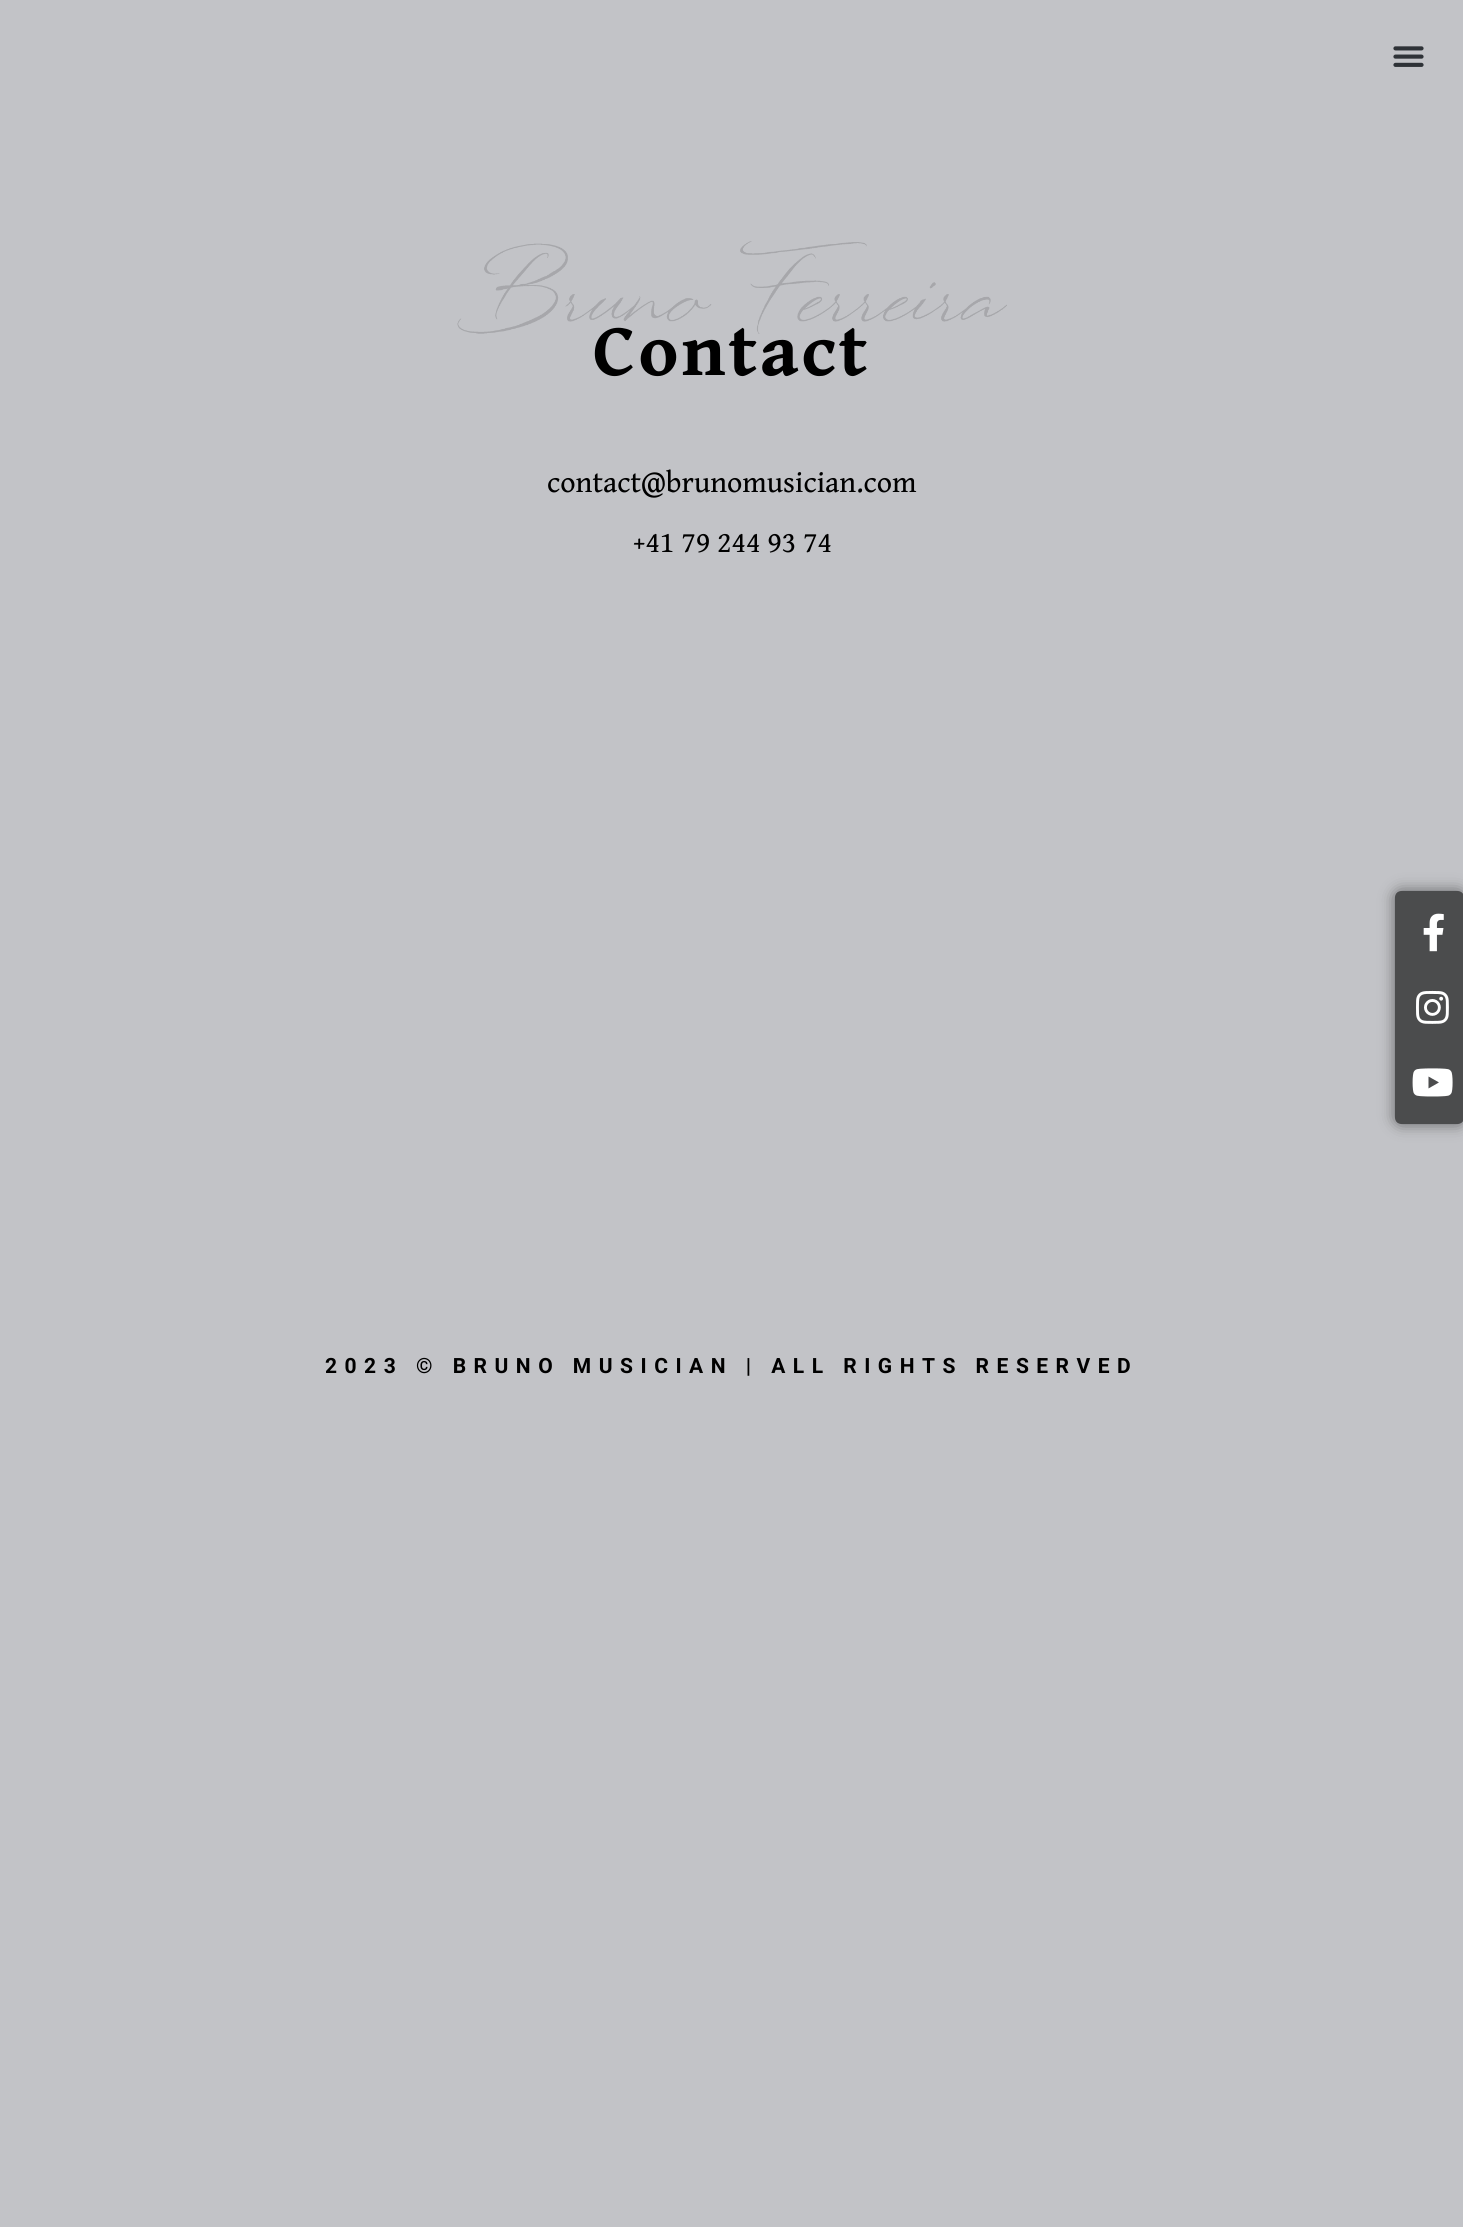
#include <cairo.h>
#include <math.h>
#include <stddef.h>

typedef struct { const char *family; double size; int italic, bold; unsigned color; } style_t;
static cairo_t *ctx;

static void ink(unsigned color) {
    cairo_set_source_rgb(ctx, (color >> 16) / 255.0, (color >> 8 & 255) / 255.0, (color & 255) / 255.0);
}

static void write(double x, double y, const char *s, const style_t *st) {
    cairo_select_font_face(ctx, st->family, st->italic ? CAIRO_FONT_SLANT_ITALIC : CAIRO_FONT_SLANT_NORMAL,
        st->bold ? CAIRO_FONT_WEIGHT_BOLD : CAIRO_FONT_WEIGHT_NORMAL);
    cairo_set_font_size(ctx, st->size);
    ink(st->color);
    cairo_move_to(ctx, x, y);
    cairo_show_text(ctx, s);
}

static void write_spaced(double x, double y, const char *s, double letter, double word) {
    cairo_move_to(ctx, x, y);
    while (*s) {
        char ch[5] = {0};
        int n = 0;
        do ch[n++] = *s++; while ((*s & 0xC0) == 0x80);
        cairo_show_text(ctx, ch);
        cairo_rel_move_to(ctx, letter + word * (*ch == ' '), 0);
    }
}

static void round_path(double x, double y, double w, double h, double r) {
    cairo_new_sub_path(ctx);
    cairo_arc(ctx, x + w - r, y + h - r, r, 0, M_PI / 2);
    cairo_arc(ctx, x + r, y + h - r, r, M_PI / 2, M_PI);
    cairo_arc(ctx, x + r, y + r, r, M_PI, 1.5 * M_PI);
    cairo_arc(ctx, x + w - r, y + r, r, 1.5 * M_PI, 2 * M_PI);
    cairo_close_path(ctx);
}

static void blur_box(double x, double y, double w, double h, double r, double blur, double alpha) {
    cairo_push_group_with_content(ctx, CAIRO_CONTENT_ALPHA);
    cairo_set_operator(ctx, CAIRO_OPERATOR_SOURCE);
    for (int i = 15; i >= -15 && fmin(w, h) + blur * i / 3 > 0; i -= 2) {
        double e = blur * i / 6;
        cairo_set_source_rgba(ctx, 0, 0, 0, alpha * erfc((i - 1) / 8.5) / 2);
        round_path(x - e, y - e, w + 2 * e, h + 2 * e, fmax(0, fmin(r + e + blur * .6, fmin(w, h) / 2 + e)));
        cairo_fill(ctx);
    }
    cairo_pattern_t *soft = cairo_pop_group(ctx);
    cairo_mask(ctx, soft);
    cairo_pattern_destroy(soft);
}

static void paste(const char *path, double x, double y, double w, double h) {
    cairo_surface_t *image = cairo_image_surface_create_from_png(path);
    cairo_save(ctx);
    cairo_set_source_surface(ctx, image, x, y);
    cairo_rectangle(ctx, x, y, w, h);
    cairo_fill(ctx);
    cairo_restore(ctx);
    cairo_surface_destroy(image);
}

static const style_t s1 = {"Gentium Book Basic", 30, 0, 0, 0x000000};

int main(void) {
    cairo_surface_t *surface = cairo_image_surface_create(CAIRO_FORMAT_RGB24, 1463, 2227);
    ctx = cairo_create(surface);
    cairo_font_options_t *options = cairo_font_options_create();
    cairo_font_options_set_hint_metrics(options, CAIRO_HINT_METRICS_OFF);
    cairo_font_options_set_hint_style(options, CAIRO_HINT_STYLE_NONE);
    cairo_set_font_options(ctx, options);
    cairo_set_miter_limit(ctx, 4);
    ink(0xc2c3c7);
    cairo_paint(ctx);
    paste("pic1.png", 1393, 46, 31, 21);
    paste("pic2.png", 457, 241, 550, 93);
    cairo_select_font_face(ctx, "Gentium Book Basic", CAIRO_FONT_SLANT_NORMAL, CAIRO_FONT_WEIGHT_BOLD);
    cairo_set_font_size(ctx, 75);
    ink(0x000000);
    write_spaced(593, 375, "Contact", 3, 0);
    write(547, 492, "contact@brunomusician.com", &s1);
    write(633, 552, "+41 79 244 93 74", &s1);
    cairo_save(ctx);
    cairo_set_fill_rule(ctx, CAIRO_FILL_RULE_EVEN_ODD);
    cairo_new_path(ctx);
    cairo_move_to(ctx, 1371, 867);
    cairo_line_to(ctx, 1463, 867);
    cairo_line_to(ctx, 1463, 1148);
    cairo_line_to(ctx, 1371, 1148);
    cairo_close_path(ctx);
    cairo_move_to(ctx, 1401, 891);
    cairo_line_to(ctx, 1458, 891);
    cairo_curve_to(ctx, 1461.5, 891, 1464, 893.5, 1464, 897);
    cairo_line_to(ctx, 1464, 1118);
    cairo_curve_to(ctx, 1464, 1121.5, 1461.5, 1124, 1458, 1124);
    cairo_line_to(ctx, 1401, 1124);
    cairo_curve_to(ctx, 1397.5, 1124, 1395, 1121.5, 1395, 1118);
    cairo_line_to(ctx, 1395, 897);
    cairo_curve_to(ctx, 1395, 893.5, 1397.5, 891, 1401, 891);
    cairo_close_path(ctx);
    cairo_clip(ctx);
    ink(0x000000);
    blur_box(1395, 891, 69, 233, 6, 7.5, 0.5);
    cairo_restore(ctx);
    cairo_set_source_rgba(ctx, 0, 0, 0, 0.61);
    round_path(1395, 891, 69, 233, 6);
    cairo_fill(ctx);
    paste("pic3.png", 1423, 913, 21, 39);
    paste("pic4.png", 1416, 990, 33, 34);
    paste("pic5.png", 1412, 1068, 41, 29);
    cairo_select_font_face(ctx, "Roboto", CAIRO_FONT_SLANT_NORMAL, CAIRO_FONT_WEIGHT_BOLD);
    cairo_set_font_size(ctx, 21);
    ink(0x000000);
    write_spaced(325, 1373, "2023 © BRUNO MUSICIAN | ALL RIGHTS RESERVED", 7.5, 0);
    cairo_surface_write_to_png(surface, "screenshot.png");
    cairo_font_options_destroy(options);
    cairo_destroy(ctx);
    cairo_surface_destroy(surface);
    return 0;
}
